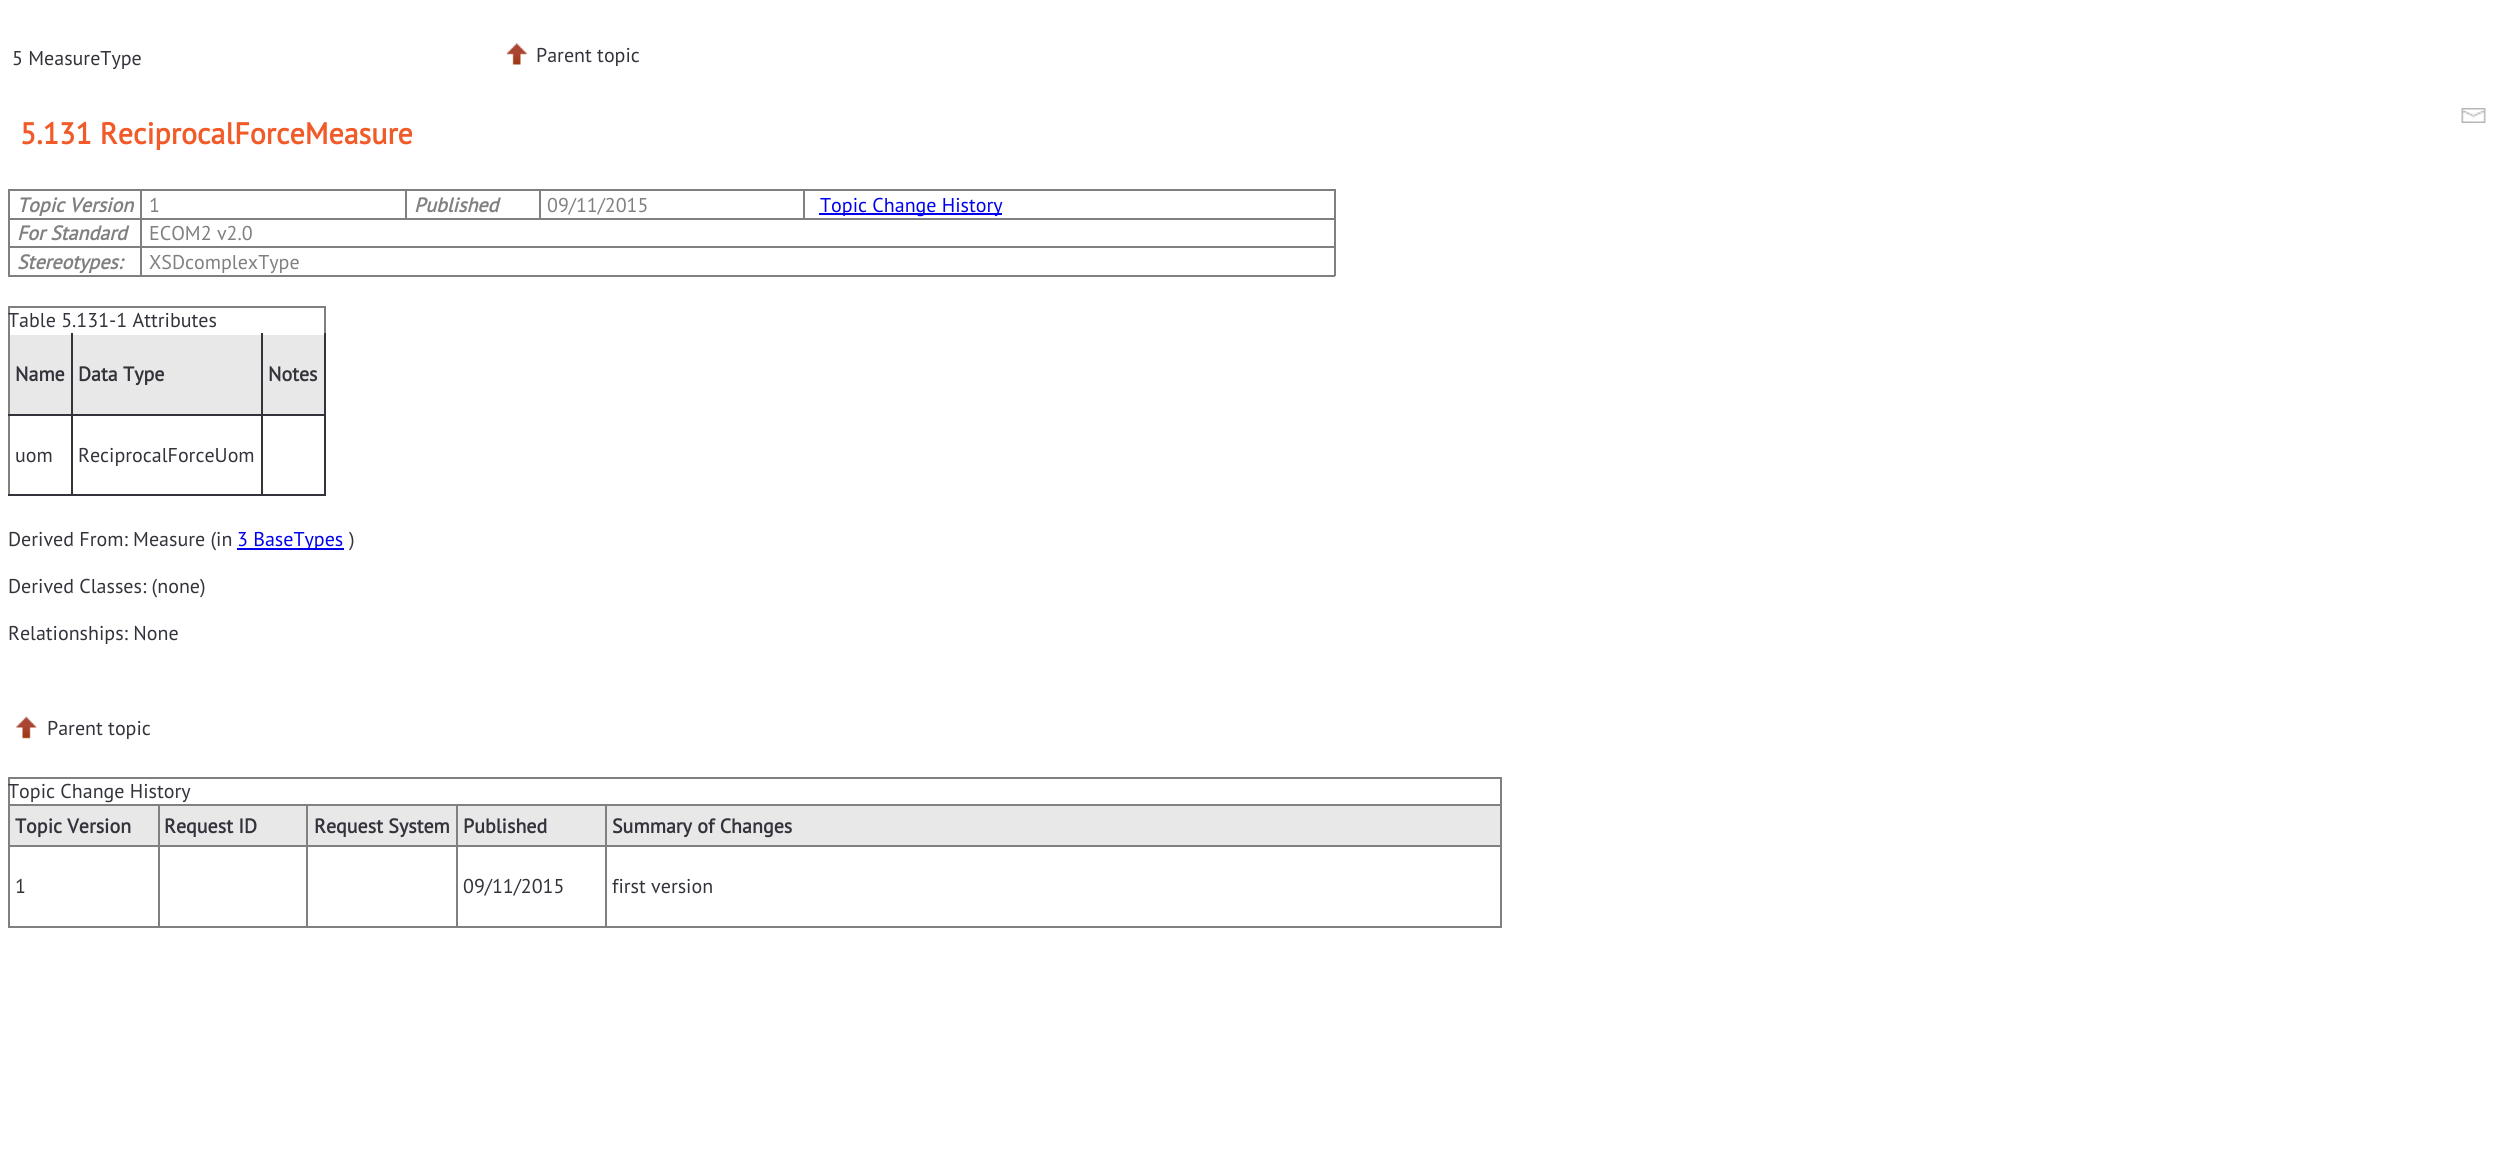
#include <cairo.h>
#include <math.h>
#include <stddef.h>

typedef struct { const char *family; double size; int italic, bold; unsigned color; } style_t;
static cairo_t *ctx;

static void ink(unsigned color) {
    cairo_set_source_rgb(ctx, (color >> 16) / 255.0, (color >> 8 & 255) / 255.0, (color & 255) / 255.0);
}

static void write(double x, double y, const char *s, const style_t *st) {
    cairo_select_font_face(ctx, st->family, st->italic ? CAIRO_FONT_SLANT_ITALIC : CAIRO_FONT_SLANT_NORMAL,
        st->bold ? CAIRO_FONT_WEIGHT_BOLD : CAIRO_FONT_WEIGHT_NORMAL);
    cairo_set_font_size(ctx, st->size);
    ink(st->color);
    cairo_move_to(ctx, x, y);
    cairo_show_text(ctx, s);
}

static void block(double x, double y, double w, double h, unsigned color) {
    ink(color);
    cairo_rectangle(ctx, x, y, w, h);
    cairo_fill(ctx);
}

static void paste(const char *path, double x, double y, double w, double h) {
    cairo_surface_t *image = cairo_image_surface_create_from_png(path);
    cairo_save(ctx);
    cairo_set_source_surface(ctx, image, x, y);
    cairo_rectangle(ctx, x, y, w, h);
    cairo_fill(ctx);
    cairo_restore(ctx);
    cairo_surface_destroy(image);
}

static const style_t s1 = {"PT Sans", 20, 0, 0, 0x33333c};
static const style_t s2 = {"PT Sans", 30, 0, 1, 0xf15a29};
static const style_t s3 = {"PT Sans", 20, 1, 1, 0x808080};
static const style_t s4 = {"PT Sans", 20, 0, 0, 0x808080};
static const style_t s5 = {"PT Sans", 20, 0, 0, 0x0000ee};
static const style_t s6 = {"PT Sans", 20, 0, 1, 0x33333c};

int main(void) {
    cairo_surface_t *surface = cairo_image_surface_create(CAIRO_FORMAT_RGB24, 2511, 1175);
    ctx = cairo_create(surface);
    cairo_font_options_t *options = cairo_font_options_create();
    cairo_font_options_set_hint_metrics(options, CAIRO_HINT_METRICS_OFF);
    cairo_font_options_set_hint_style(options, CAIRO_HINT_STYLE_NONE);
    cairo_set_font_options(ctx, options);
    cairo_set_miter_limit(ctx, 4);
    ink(0xffffff);
    cairo_paint(ctx);
    write(12, 65, "5 MeasureType", &s1);
    paste("pic1.png", 506, 43, 21, 22);
    write(536, 62, "Parent topic", &s1);
    paste("pic2.png", 2461, 108, 25, 15);
    write(20, 144, "5.131 ReciprocalForceMeasure", &s2);
    block(8, 189, 1327, 2, 0x808080);
    block(1334, 189, 2, 87, 0x808080);
    block(8, 275, 1327, 2, 0x808080);
    block(8, 189, 2, 87, 0x808080);
    write(17, 212, "Topic Version", &s3);
    block(140, 218, 1195, 2, 0x808080);
    block(140, 246, 1195, 2, 0x808080);
    block(140, 246, 2, 30, 0x808080);
    block(8, 246, 133, 2, 0x808080);
    block(140, 218, 2, 30, 0x808080);
    block(8, 218, 133, 2, 0x808080);
    block(140, 189, 2, 30, 0x808080);
    write(149, 212, "1", &s4);
    block(405, 189, 2, 30, 0x808080);
    write(414, 212, "Published", &s3);
    block(539, 189, 2, 30, 0x808080);
    write(547, 212, "09/11/2015", &s4);
    block(803, 189, 2, 30, 0x808080);
    block(819, 213, 183, 2, 0x0000ee);
    write(820, 212, "Topic Change History", &s5);
    write(17, 240, "For Standard", &s3);
    write(149, 240, "ECOM2 v2.0", &s4);
    write(17, 269, "Stereotypes:", &s3);
    write(149, 269, "XSDcomplexType", &s4);
    block(8, 306, 318, 2, 0x808080);
    block(324, 306, 2, 27, 0x808080);
    block(8, 306, 2, 189, 0x808080);
    write(8, 327, "Table 5.131-1 Attributes", &s1);
    block(10, 335, 314, 79, 0xe8e8e8);
    block(324, 333, 2, 162, 0x33333c);
    block(261, 494, 65, 2, 0x33333c);
    block(261, 414, 2, 81, 0x33333c);
    block(261, 414, 65, 2, 0x33333c);
    block(261, 333, 2, 83, 0x33333c);
    block(71, 494, 192, 2, 0x33333c);
    block(71, 414, 2, 81, 0x33333c);
    block(71, 414, 192, 2, 0x33333c);
    block(71, 333, 2, 83, 0x33333c);
    block(8, 414, 64, 2, 0x33333c);
    write(15, 381, "Name", &s6);
    write(78, 381, "Data Type", &s6);
    write(268, 381, "Notes", &s6);
    block(8, 494, 64, 2, 0x33333c);
    write(15, 462, "uom", &s1);
    write(78, 462, "ReciprocalForceUom", &s1);
    write(8, 546, "Derived From: Measure (in", &s1);
    block(237, 548, 107, 2, 0x0000ee);
    write(237, 546, "3 BaseTypes", &s5);
    write(349, 546, ")", &s1);
    write(8, 593, "Derived Classes: (none)", &s1);
    write(8, 640, "Relationships: None", &s1);
    paste("pic3.png", 16, 716, 21, 23);
    write(47, 735, "Parent topic", &s1);
    block(8, 777, 1494, 2, 0x808080);
    block(1500, 777, 2, 150, 0x808080);
    block(8, 926, 1494, 2, 0x808080);
    block(8, 777, 2, 150, 0x808080);
    write(8, 798, "Topic Change History", &s1);
    block(10, 806, 1490, 39, 0xe8e8e8);
    block(605, 804, 897, 2, 0x808080);
    block(605, 845, 897, 2, 0x808080);
    block(605, 845, 2, 82, 0x808080);
    block(456, 845, 150, 2, 0x808080);
    block(605, 804, 2, 42, 0x808080);
    block(456, 804, 150, 2, 0x808080);
    block(456, 845, 2, 82, 0x808080);
    block(306, 845, 152, 2, 0x808080);
    block(456, 804, 2, 42, 0x808080);
    block(306, 804, 152, 2, 0x808080);
    block(306, 845, 2, 82, 0x808080);
    block(158, 845, 150, 2, 0x808080);
    block(306, 804, 2, 42, 0x808080);
    block(158, 804, 150, 2, 0x808080);
    block(158, 845, 2, 82, 0x808080);
    block(8, 845, 151, 2, 0x808080);
    block(158, 804, 2, 42, 0x808080);
    block(8, 804, 151, 2, 0x808080);
    write(15, 833, "Topic Version", &s6);
    write(164, 833, "Request ID", &s6);
    write(314, 833, "Request System", &s6);
    write(463, 833, "Published", &s6);
    write(612, 833, "Summary of Changes", &s6);
    write(15, 893, "1", &s1);
    write(463, 893, "09/11/2015", &s1);
    write(612, 893, "first version", &s1);
    cairo_surface_write_to_png(surface, "screenshot.png");
    cairo_font_options_destroy(options);
    cairo_destroy(ctx);
    cairo_surface_destroy(surface);
    return 0;
}
